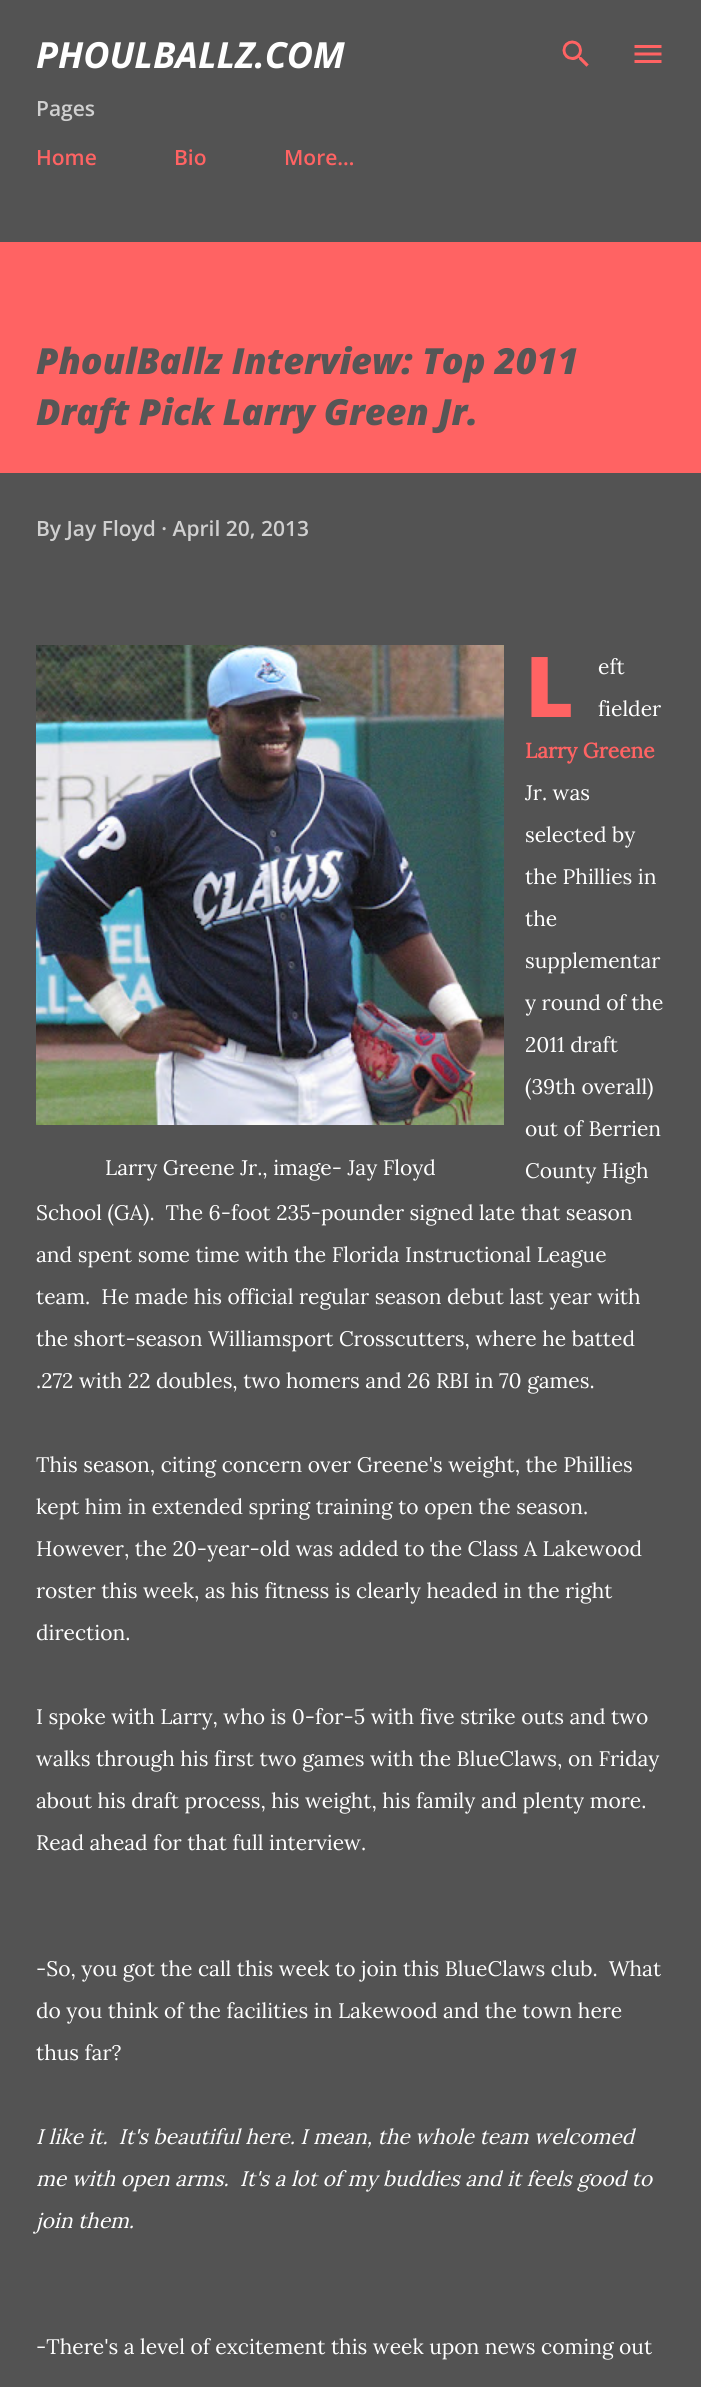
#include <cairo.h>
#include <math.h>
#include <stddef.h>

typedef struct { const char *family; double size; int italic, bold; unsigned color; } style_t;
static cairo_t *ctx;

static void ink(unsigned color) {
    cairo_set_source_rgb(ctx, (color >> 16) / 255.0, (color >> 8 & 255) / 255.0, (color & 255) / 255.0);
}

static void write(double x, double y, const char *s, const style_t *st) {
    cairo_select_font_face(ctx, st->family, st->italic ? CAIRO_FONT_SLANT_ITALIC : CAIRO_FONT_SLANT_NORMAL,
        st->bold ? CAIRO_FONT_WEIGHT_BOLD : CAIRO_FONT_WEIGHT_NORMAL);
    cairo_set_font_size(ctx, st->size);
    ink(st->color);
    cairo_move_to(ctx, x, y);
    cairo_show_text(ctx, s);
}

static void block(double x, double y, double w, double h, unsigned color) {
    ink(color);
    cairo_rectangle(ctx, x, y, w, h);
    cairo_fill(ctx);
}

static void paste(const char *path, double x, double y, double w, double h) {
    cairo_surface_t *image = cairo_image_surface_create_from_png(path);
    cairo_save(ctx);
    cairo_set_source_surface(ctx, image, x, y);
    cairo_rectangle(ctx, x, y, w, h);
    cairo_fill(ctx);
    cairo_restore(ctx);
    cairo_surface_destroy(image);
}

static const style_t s1 = {"Open Sans", 36, 1, 1, 0xffffff};
static const style_t s2 = {"Open Sans SemiBold", 21, 0, 0, 0xd0d0d0};
static const style_t s3 = {"Open Sans SemiBold", 21, 0, 0, 0xff6363};
static const style_t s4 = {"Open Sans ExtraBold", 36, 1, 0, 0x565656};
static const style_t s5 = {"Noto Sans Black", 84, 0, 0, 0xff6363};
static const style_t s6 = {"Lora", 21, 0, 0, 0xffffff};
static const style_t s7 = {"Lora", 21, 0, 1, 0xff6363};
static const style_t s8 = {"Lora", 21, 1, 0, 0xffffff};

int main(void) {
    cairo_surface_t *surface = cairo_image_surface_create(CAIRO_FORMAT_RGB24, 701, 2387);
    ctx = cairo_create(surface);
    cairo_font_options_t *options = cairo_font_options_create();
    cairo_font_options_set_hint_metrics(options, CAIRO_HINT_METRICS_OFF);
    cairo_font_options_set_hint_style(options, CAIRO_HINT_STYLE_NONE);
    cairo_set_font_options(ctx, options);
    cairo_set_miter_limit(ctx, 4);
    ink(0x535353);
    cairo_paint(ctx);
    write(36, 68, "PHOULBALLZ.COM", &s1);
    paste("pic1.png", 562, 40, 27, 27);
    paste("pic2.png", 634, 45, 28, 18);
    write(36, 116, "Pages", &s2);
    write(36, 165, "Home", &s3);
    write(174, 165, "Bio", &s3);
    write(284, 165, "More…", &s3);
    block(0, 242, 701, 231, 0xff6363);
    write(36, 374, "PhoulBallz Interview: Top 2011", &s4);
    write(36, 425, "Draft Pick Larry Green Jr.", &s4);
    write(36, 536, "By Jay Floyd · April 20, 2013", &s2);
    write(525, 717, "L", &s5);
    write(598, 674, "eft", &s6);
    write(598, 716, "fielder", &s6);
    write(525, 758, "Larry Greene", &s7);
    write(525, 800, "Jr. was", &s6);
    write(525, 842, "selected by", &s6);
    write(525, 884, "the Phillies in", &s6);
    write(525, 926, "the", &s6);
    write(525, 968, "supplementar", &s6);
    write(525, 1010, "y round of the", &s6);
    write(525, 1052, "2011 draft", &s6);
    write(525, 1094, "(39th overall)", &s6);
    write(525, 1136, "out of Berrien", &s6);
    paste("pic3.png", 36, 645, 468, 480);
    write(105, 1175, "Larry Greene Jr., image- Jay Floyd", &s6);
    write(525, 1178, "County High", &s6);
    write(36, 1220, "School (GA).  The 6-foot 235-pounder signed late that season", &s6);
    write(36, 1262, "and spent some time with the Florida Instructional League", &s6);
    write(36, 1304, "team.  He made his official regular season debut last year with", &s6);
    write(36, 1346, "the short-season Williamsport Crosscutters, where he batted", &s6);
    write(36, 1388, ".272 with 22 doubles, two homers and 26 RBI in 70 games.", &s6);
    write(36, 1472, "This season, citing concern over Greene's weight, the Phillies", &s6);
    write(36, 1514, "kept him in extended spring training to open the season.", &s6);
    write(36, 1556, "However, the 20-year-old was added to the Class A Lakewood", &s6);
    write(36, 1598, "roster this week, as his fitness is clearly headed in the right", &s6);
    write(36, 1640, "direction.", &s6);
    write(36, 1724, "I spoke with Larry, who is 0-for-5 with five strike outs and two", &s6);
    write(36, 1766, "walks through his first two games with the BlueClaws, on Friday", &s6);
    write(36, 1808, "about his draft process, his weight, his family and plenty more.", &s6);
    write(36, 1850, "Read ahead for that full interview.", &s6);
    write(36, 1976, "-So, you got the call this week to join this BlueClaws club.  What", &s6);
    write(36, 2018, "do you think of the facilities in Lakewood and the town here", &s6);
    write(36, 2060, "thus far?", &s6);
    write(36, 2144, "I like it.  It's beautiful here. I mean, the whole team welcomed", &s8);
    write(36, 2186, "me with open arms.  It's a lot of my buddies and it feels good to", &s8);
    write(36, 2228, "join them.", &s8);
    write(36, 2354, "-There's a level of excitement this week upon news coming out", &s6);
    cairo_surface_write_to_png(surface, "screenshot.png");
    cairo_font_options_destroy(options);
    cairo_destroy(ctx);
    cairo_surface_destroy(surface);
    return 0;
}
